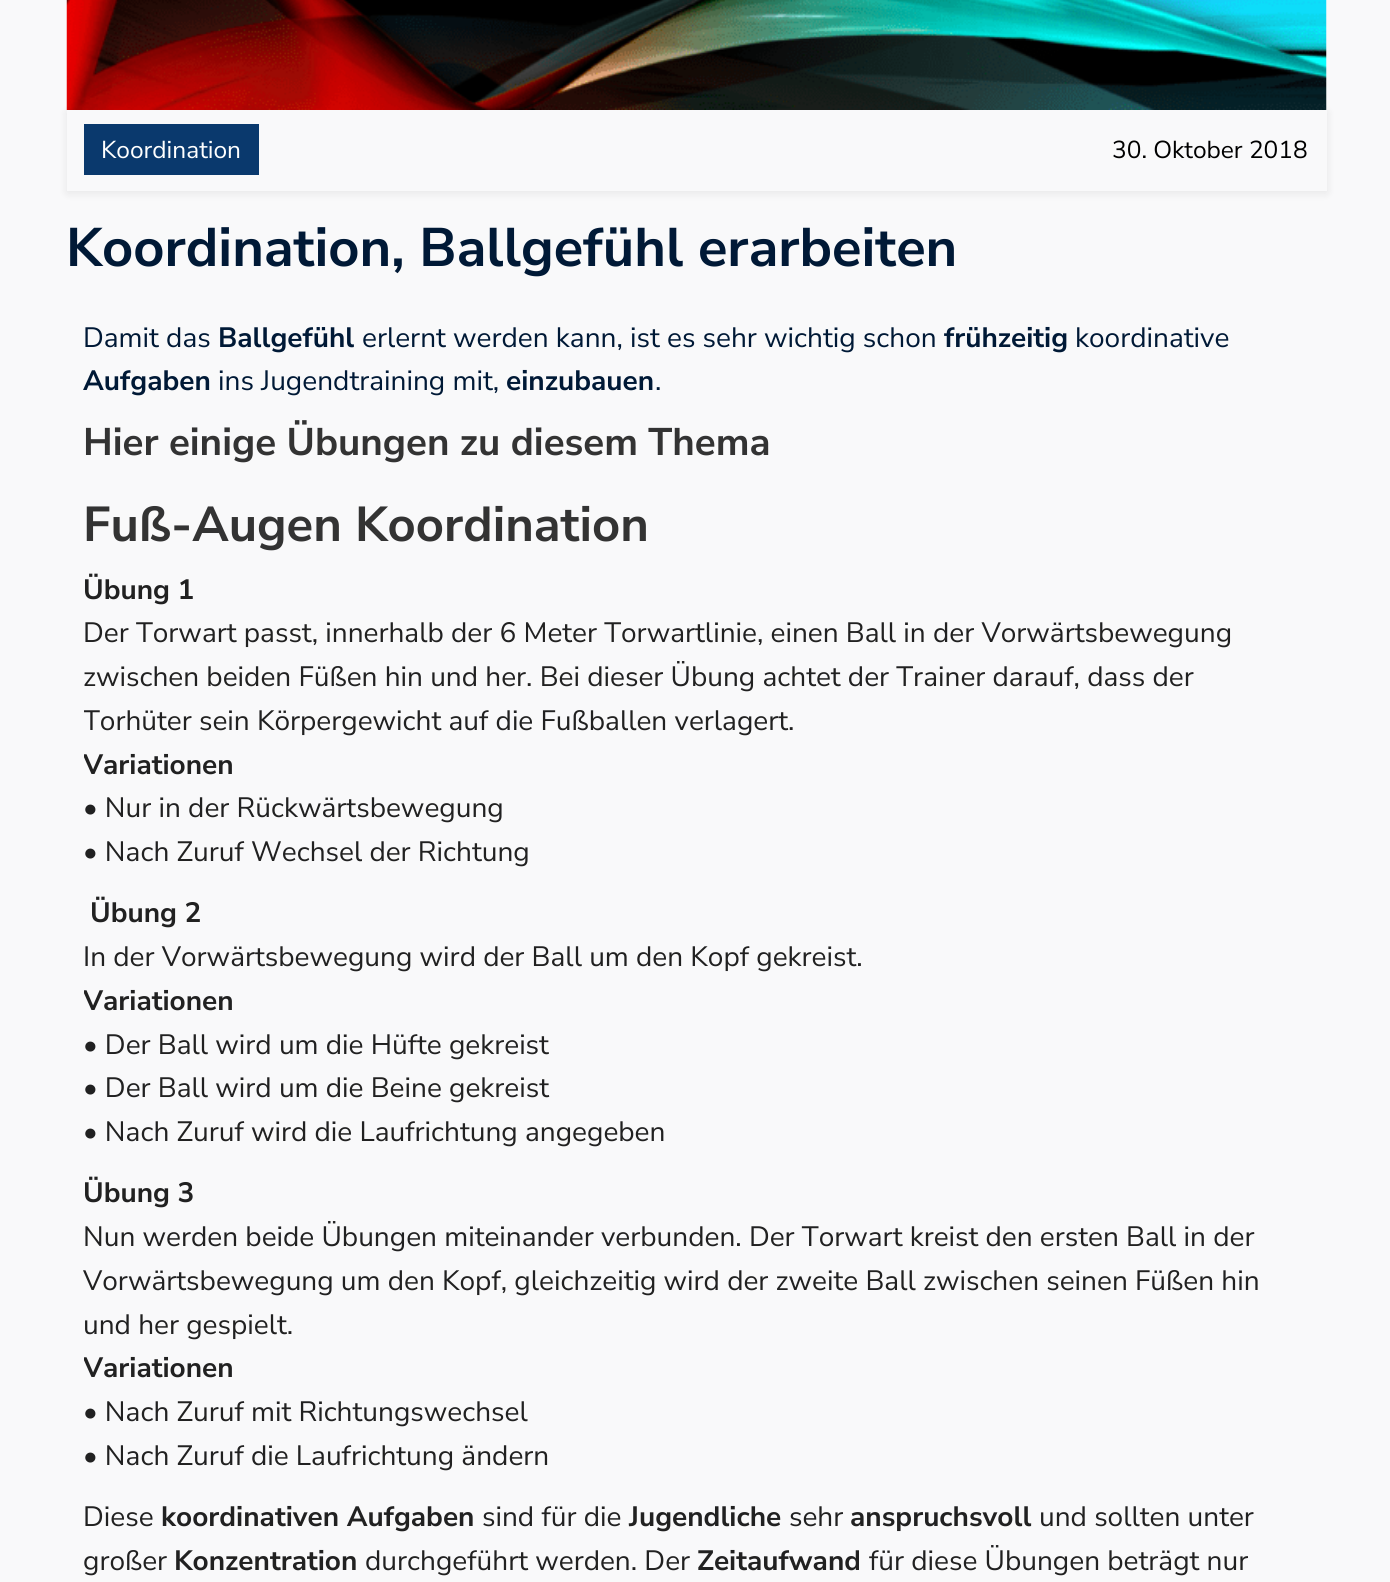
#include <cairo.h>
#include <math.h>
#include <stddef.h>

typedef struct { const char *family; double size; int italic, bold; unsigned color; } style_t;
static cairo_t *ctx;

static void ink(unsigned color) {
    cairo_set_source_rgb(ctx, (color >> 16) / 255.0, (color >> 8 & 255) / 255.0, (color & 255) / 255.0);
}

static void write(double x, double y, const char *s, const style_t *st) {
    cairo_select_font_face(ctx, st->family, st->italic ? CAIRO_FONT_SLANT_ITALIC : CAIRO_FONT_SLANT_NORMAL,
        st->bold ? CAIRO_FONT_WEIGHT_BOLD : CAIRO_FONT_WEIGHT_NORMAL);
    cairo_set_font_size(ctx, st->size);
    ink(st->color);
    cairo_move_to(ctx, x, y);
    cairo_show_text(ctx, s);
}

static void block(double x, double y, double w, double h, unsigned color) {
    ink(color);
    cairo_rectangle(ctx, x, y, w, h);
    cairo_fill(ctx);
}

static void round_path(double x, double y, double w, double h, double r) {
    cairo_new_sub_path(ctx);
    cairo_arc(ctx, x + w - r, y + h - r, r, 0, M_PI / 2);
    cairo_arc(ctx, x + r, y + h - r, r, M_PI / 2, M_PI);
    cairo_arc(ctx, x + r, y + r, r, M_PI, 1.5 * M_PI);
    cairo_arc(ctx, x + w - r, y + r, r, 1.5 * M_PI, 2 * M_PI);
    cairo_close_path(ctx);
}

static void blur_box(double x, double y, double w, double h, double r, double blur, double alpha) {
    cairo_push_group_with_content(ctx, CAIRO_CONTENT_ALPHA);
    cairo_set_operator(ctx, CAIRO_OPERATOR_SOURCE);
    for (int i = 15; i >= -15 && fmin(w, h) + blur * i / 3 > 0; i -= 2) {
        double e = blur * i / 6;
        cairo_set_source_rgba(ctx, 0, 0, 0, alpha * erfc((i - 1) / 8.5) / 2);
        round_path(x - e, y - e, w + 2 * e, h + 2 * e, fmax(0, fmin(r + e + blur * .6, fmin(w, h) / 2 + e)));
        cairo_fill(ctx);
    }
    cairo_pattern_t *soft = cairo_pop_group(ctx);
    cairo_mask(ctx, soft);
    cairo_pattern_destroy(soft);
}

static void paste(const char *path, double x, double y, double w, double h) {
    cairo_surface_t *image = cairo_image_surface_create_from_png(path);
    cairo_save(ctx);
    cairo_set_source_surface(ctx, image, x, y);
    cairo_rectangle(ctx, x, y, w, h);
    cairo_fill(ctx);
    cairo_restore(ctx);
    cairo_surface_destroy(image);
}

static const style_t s1 = {"Nunito Sans", 24.5, 0, 0, 0xffffff};
static const style_t s2 = {"Nunito Sans", 24.5, 0, 0, 0x000000};
static const style_t s3 = {"Nunito Sans", 54.25, 0, 1, 0x001936};
static const style_t s4 = {"Nunito Sans", 28, 0, 0, 0x001936};
static const style_t s5 = {"Nunito Sans", 28, 0, 1, 0x001936};
static const style_t s6 = {"Nunito Sans", 38.5, 0, 1, 0x333333};
static const style_t s7 = {"Nunito Sans", 49, 0, 1, 0x333333};
static const style_t s8 = {"Nunito Sans", 28, 0, 1, 0x212121};
static const style_t s9 = {"Nunito Sans", 28, 0, 0, 0x212121};

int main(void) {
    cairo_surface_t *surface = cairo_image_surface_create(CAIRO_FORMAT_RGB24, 1390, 1582);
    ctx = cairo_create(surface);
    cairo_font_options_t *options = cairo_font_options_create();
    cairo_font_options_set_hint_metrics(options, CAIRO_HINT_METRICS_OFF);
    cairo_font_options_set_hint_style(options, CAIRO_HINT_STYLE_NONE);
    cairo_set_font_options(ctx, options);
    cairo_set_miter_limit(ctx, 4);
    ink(0xf9f9fa);
    cairo_paint(ctx);
    cairo_save(ctx);
    cairo_set_fill_rule(ctx, CAIRO_FILL_RULE_EVEN_ODD);
    cairo_new_path(ctx);
    cairo_move_to(ctx, 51, 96);
    cairo_line_to(ctx, 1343, 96);
    cairo_line_to(ctx, 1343, 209);
    cairo_line_to(ctx, 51, 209);
    cairo_close_path(ctx);
    cairo_move_to(ctx, 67, 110);
    cairo_line_to(ctx, 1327, 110);
    cairo_line_to(ctx, 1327, 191);
    cairo_line_to(ctx, 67, 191);
    cairo_close_path(ctx);
    cairo_clip(ctx);
    ink(0x000000);
    blur_box(67, 112, 1260, 81, 0, 5, 0.08);
    cairo_restore(ctx);
    paste("pic1.png", 66, 0, 1261, 110);
    block(84, 124, 175, 51, 0x0a396d);
    write(101, 158, "Koordination", &s1);
    write(1112, 158, "30. Oktober 2018", &s2);
    write(66, 266, "Koordination, Ballgefühl erarbeiten", &s3);
    write(83, 347, "Damit das", &s4);
    write(218, 347, "Ballgefühl", &s5);
    write(362, 347, "erlernt werden kann, ist es sehr wichtig schon", &s4);
    write(944, 347, "frühzeitig", &s5);
    write(1075, 347, "koordinative", &s4);
    write(83, 390, "Aufgaben", &s5);
    write(218, 390, "ins Jugendtraining mit,", &s4);
    write(506, 390, "einzubauen", &s5);
    write(655, 390, ".", &s4);
    write(83, 455, "Hier einige Übungen zu diesem Thema", &s6);
    write(83, 541, "Fuß-Augen Koordination", &s7);
    write(83, 599, "Übung 1", &s8);
    write(83, 642, "Der Torwart passt, innerhalb der 6 Meter Torwartlinie, einen Ball in der Vorwärtsbewegung", &s9);
    write(83, 686, "zwischen beiden Füßen hin und her. Bei dieser Übung achtet der Trainer darauf, dass der", &s9);
    cairo_save(ctx);
    cairo_rectangle(ctx, 84, 569, 1225, 306);
    cairo_clip(ctx);
    write(83, 730, "Torhüter sein Körpergewicht auf die Fußballen verlagert.", &s9);
    write(83, 774, "Variationen", &s8);
    cairo_restore(ctx);
    write(83, 817, "• Nur in der Rückwärtsbewegung", &s9);
    write(83, 861, "• Nach Zuruf Wechsel der Richtung", &s9);
    write(90, 922, "Übung 2", &s8);
    write(83, 966, "In der Vorwärtsbewegung wird der Ball um den Kopf gekreist.", &s9);
    cairo_save(ctx);
    cairo_rectangle(ctx, 84, 893, 1225, 262);
    cairo_clip(ctx);
    write(83, 1010, "Variationen", &s8);
    cairo_restore(ctx);
    write(83, 1054, "• Der Ball wird um die Hüfte gekreist", &s9);
    write(83, 1097, "• Der Ball wird um die Beine gekreist", &s9);
    write(83, 1141, "• Nach Zuruf wird die Laufrichtung angegeben", &s9);
    write(83, 1202, "Übung 3", &s8);
    write(83, 1246, "Nun werden beide Übungen miteinander verbunden. Der Torwart kreist den ersten Ball in der", &s9);
    write(83, 1290, "Vorwärtsbewegung um den Kopf, gleichzeitig wird der zweite Ball zwischen seinen Füßen hin", &s9);
    write(83, 1334, "und her gespielt.", &s9);
    cairo_save(ctx);
    cairo_rectangle(ctx, 84, 1173, 1225, 306);
    cairo_clip(ctx);
    write(83, 1377, "Variationen", &s8);
    cairo_restore(ctx);
    write(83, 1421, "• Nach Zuruf mit Richtungswechsel", &s9);
    write(83, 1465, "• Nach Zuruf die Laufrichtung ändern", &s9);
    write(83, 1526, "Diese", &s9);
    write(161, 1526, "koordinativen Aufgaben", &s8);
    write(482, 1526, "sind für die", &s9);
    write(629, 1526, "Jugendliche", &s8);
    write(789, 1526, "sehr", &s9);
    write(850, 1526, "anspruchsvoll", &s8);
    write(1039, 1526, "und sollten unter", &s9);
    write(83, 1570, "großer", &s9);
    write(174, 1570, "Konzentration", &s8);
    write(365, 1570, "durchgeführt werden. Der", &s9);
    write(697, 1570, "Zeitaufwand", &s8);
    write(869, 1570, "für diese Übungen beträgt nur", &s9);
    cairo_surface_write_to_png(surface, "screenshot.png");
    cairo_font_options_destroy(options);
    cairo_destroy(ctx);
    cairo_surface_destroy(surface);
    return 0;
}
